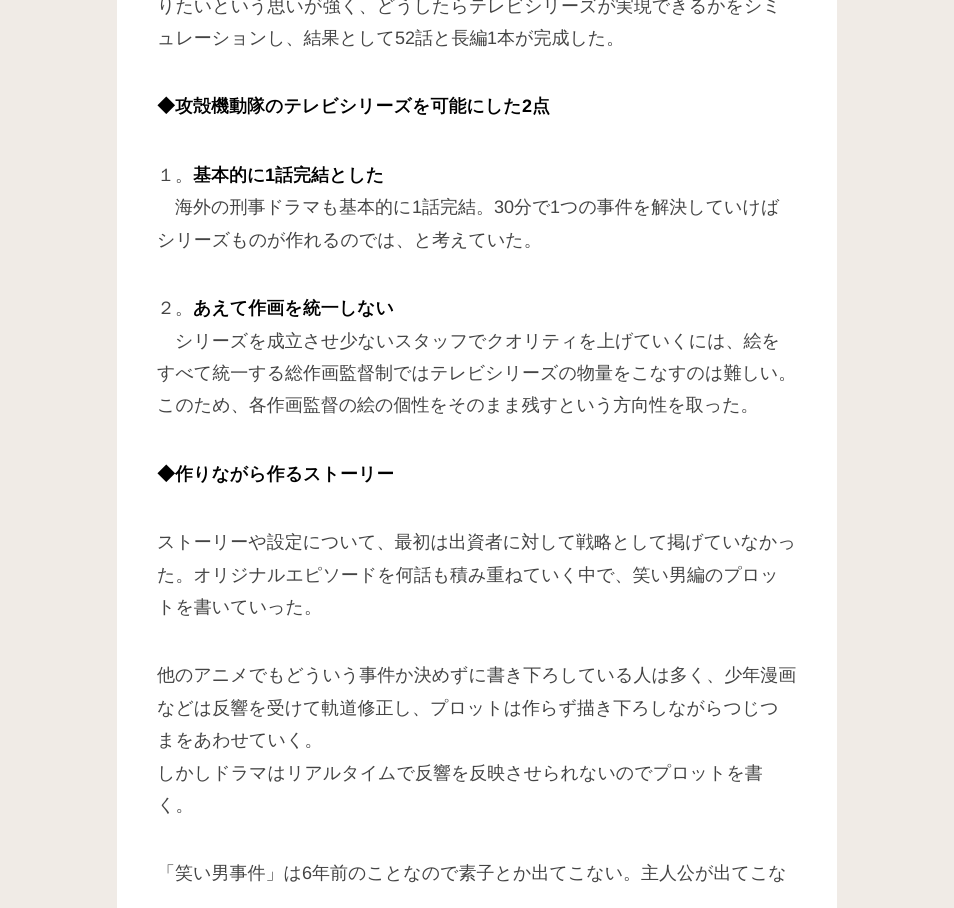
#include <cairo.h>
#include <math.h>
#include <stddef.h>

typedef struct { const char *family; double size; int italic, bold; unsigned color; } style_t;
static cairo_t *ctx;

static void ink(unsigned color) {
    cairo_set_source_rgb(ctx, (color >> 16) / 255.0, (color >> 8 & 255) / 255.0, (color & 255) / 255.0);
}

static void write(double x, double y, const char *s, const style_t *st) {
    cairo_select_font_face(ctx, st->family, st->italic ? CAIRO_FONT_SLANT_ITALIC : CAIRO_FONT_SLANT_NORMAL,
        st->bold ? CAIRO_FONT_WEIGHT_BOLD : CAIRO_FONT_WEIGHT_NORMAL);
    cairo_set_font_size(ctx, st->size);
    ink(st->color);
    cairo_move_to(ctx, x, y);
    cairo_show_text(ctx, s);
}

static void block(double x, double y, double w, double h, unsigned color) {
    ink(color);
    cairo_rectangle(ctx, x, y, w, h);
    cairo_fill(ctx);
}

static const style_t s1 = {"WenQuanYi Zen Hei Medium", 18, 0, 0, 0x444444};
static const style_t s2 = {"Liberation Sans", 18, 0, 0, 0x444444};
static const style_t s3 = {"WenQuanYi Zen Hei", 18, 0, 1, 0x000000};
static const style_t s4 = {"Liberation Sans", 18, 0, 1, 0x000000};

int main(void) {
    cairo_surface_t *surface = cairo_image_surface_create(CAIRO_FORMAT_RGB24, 954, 908);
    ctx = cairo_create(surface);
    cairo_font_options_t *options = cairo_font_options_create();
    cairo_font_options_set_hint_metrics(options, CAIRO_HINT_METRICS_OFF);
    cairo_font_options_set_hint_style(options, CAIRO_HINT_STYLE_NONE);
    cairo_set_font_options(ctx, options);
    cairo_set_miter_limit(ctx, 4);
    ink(0xf0ebe6);
    cairo_paint(ctx);
    block(117, 0, 720, 908, 0xffffff);
    write(157, 12, "りたいという思いが強く、どうしたらテレビシリーズが実現できるかをシミ", &s1);
    write(157, 44, "ュレーションし、結果として", &s1);
    write(395, 44, "52", &s2);
    write(415, 44, "話と長編", &s1);
    write(487, 44, "1", &s2);
    write(497, 44, "本が完成した。", &s1);
    write(157, 112, "◆攻殻機動隊のテレビシリーズを可能にした", &s3);
    write(522, 112, "2", &s4);
    write(532, 112, "点", &s3);
    write(157, 181, "１。", &s1);
    write(193, 181, "基本的に", &s3);
    write(265, 181, "1", &s4);
    write(275, 181, "話完結とした", &s3);
    write(175, 213, "海外の刑事ドラマも基本的に", &s1);
    write(412, 213, "1", &s2);
    write(422, 213, "話完結。", &s1);
    write(494, 213, "30", &s2);
    write(514, 213, "分で", &s1);
    write(550, 213, "1", &s2);
    write(560, 213, "つの事件を解決していけば", &s1);
    write(157, 246, "シリーズものが作れるのでは、と考えていた。", &s1);
    write(157, 314, "２。", &s1);
    write(193, 314, "あえて作画を統一しない", &s3);
    write(175, 347, "シリーズを成立させ少ないスタッフでクオリティを上げていくには、絵を", &s1);
    write(157, 379, "すべて統一する総作画監督制ではテレビシリーズの物量をこなすのは難しい。", &s1);
    write(157, 411, "このため、各作画監督の絵の個性をそのまま残すという方向性を取った。", &s1);
    write(157, 480, "◆作りながら作るストーリー", &s3);
    write(157, 548, "ストーリーや設定について、最初は出資者に対して戦略として掲げていなかっ", &s1);
    write(157, 581, "た。オリジナルエピソードを何話も積み重ねていく中で、笑い男編のプロッ", &s1);
    write(157, 613, "トを書いていった。", &s1);
    write(157, 681, "他のアニメでもどういう事件か決めずに書き下ろしている人は多く、少年漫画", &s1);
    write(157, 714, "などは反響を受けて軌道修正し、プロットは作らず描き下ろしながらつじつ", &s1);
    write(157, 746, "まをあわせていく。", &s1);
    write(157, 779, "しかしドラマはリアルタイムで反響を反映させられないのでプロットを書", &s1);
    write(157, 811, "く。", &s1);
    write(157, 879, "「笑い男事件」は", &s1);
    write(302, 879, "6", &s2);
    write(312, 879, "年前のことなので素子とか出てこない。主人公が出てこな", &s1);
    cairo_surface_write_to_png(surface, "screenshot.png");
    cairo_font_options_destroy(options);
    cairo_destroy(ctx);
    cairo_surface_destroy(surface);
    return 0;
}
